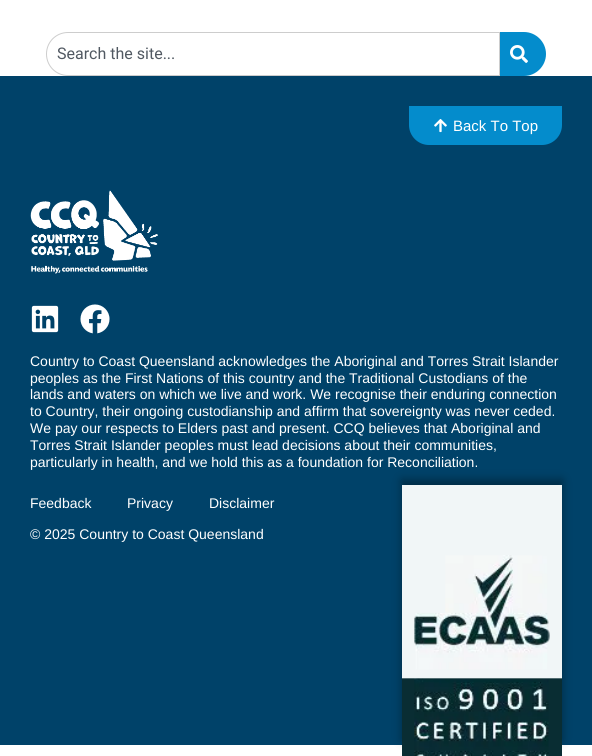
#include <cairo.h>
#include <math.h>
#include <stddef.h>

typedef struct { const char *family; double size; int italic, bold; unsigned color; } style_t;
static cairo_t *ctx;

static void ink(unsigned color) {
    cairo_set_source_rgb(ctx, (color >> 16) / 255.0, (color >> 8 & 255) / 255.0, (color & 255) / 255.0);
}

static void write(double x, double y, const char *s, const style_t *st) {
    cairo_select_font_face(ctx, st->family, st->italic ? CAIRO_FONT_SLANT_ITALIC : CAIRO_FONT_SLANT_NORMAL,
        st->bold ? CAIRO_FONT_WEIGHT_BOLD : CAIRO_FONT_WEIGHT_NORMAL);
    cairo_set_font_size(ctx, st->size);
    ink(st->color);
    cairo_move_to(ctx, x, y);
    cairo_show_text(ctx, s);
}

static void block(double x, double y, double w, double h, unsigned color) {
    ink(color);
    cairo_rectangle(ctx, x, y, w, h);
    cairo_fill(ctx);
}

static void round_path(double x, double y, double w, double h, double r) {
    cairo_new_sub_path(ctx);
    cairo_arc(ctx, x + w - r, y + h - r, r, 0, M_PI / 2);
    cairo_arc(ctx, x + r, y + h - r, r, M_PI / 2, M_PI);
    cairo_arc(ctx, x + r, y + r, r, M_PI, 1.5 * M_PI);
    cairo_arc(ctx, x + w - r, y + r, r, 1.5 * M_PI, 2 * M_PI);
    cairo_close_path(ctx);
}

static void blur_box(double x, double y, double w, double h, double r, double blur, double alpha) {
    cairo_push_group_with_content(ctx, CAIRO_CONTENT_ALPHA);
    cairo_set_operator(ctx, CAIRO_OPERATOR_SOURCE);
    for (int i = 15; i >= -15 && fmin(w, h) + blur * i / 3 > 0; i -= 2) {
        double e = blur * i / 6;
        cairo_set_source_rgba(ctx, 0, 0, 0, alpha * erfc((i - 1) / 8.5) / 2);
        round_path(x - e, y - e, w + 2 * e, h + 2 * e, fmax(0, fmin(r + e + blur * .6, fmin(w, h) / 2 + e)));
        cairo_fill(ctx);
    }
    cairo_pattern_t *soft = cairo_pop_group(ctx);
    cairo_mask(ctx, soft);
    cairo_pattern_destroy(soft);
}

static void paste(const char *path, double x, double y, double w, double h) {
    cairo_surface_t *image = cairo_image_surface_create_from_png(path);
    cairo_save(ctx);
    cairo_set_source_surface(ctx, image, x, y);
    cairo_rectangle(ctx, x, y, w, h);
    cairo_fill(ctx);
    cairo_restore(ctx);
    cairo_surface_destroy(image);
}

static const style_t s1 = {"Roboto", 16, 0, 0, 0x515962};
static const style_t s2 = {"Liberation Sans", 15, 0, 0, 0xffffff};
static const style_t s3 = {"Liberation Sans", 14, 0, 0, 0xffffff};

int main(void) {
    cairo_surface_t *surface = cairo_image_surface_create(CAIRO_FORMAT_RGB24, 592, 756);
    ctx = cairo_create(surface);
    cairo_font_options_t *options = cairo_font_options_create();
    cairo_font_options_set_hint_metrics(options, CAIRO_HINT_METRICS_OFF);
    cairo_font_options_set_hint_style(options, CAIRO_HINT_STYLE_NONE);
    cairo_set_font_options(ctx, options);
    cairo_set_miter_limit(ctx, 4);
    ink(0xffffff);
    cairo_paint(ctx);
    cairo_new_path(ctx);
    cairo_move_to(ctx, 68, 32.5);
    cairo_line_to(ctx, 499.5, 32.5);
    cairo_line_to(ctx, 499.5, 75.5);
    cairo_line_to(ctx, 68, 75.5);
    cairo_curve_to(ctx, 56, 75.5, 46.5, 66, 46.5, 54);
    cairo_curve_to(ctx, 46.5, 42, 56, 32.5, 68, 32.5);
    cairo_close_path(ctx);
    ink(0xcdcdcd);
    cairo_set_line_width(ctx, 1);
    cairo_stroke(ctx);
    write(57, 59, "Search the site...", &s1);
    ink(0x048ccc);
    cairo_new_path(ctx);
    cairo_move_to(ctx, 500, 32);
    cairo_line_to(ctx, 524, 32);
    cairo_curve_to(ctx, 536, 32, 546, 42, 546, 54);
    cairo_curve_to(ctx, 546, 66, 536, 76, 524, 76);
    cairo_line_to(ctx, 500, 76);
    cairo_close_path(ctx);
    cairo_fill(ctx);
    paste("pic1.png", 510, 45, 18, 18);
    block(0, 76, 592, 669, 0x004269);
    ink(0x048ccc);
    cairo_new_path(ctx);
    cairo_move_to(ctx, 409, 106);
    cairo_line_to(ctx, 562, 106);
    cairo_line_to(ctx, 562, 125);
    cairo_curve_to(ctx, 562, 136, 553, 145, 542, 145);
    cairo_line_to(ctx, 429, 145);
    cairo_curve_to(ctx, 418, 145, 409, 136, 409, 125);
    cairo_close_path(ctx);
    cairo_fill(ctx);
    paste("pic2.png", 434, 119, 13, 14);
    write(453, 131, "Back To Top", &s2);
    paste("pic3.png", 30, 190, 128, 84);
    paste("pic4.png", 31, 305, 28, 28);
    paste("pic5.png", 80, 304, 30, 30);
    write(30, 366, "Country to Coast Queensland acknowledges the Aboriginal and Torres Strait Islander", &s3);
    write(30, 383, "peoples as the First Nations of this country and the Traditional Custodians of the", &s3);
    write(30, 399, "lands and waters on which we live and work. We recognise their enduring connection", &s3);
    write(30, 416, "to Country, their ongoing custodianship and affirm that sovereignty was never ceded.", &s3);
    write(30, 433, "We pay our respects to Elders past and present. CCQ believes that Aboriginal and", &s3);
    write(30, 450, "Torres Strait Islander peoples must lead decisions about their communities,", &s3);
    write(30, 467, "particularly in health, and we hold this as a foundation for Reconciliation.", &s3);
    write(30, 508, "Feedback", &s3);
    write(127, 508, "Privacy", &s3);
    write(209, 508, "Disclaimer", &s3);
    write(30, 539, "© 2025 Country to Coast Queensland", &s3);
    ink(0x000000);
    blur_box(402, 480, 160, 260, 0, 5, 0.36);
    paste("pic6.png", 402, 485, 160, 271);
    cairo_surface_write_to_png(surface, "screenshot.png");
    cairo_font_options_destroy(options);
    cairo_destroy(ctx);
    cairo_surface_destroy(surface);
    return 0;
}
